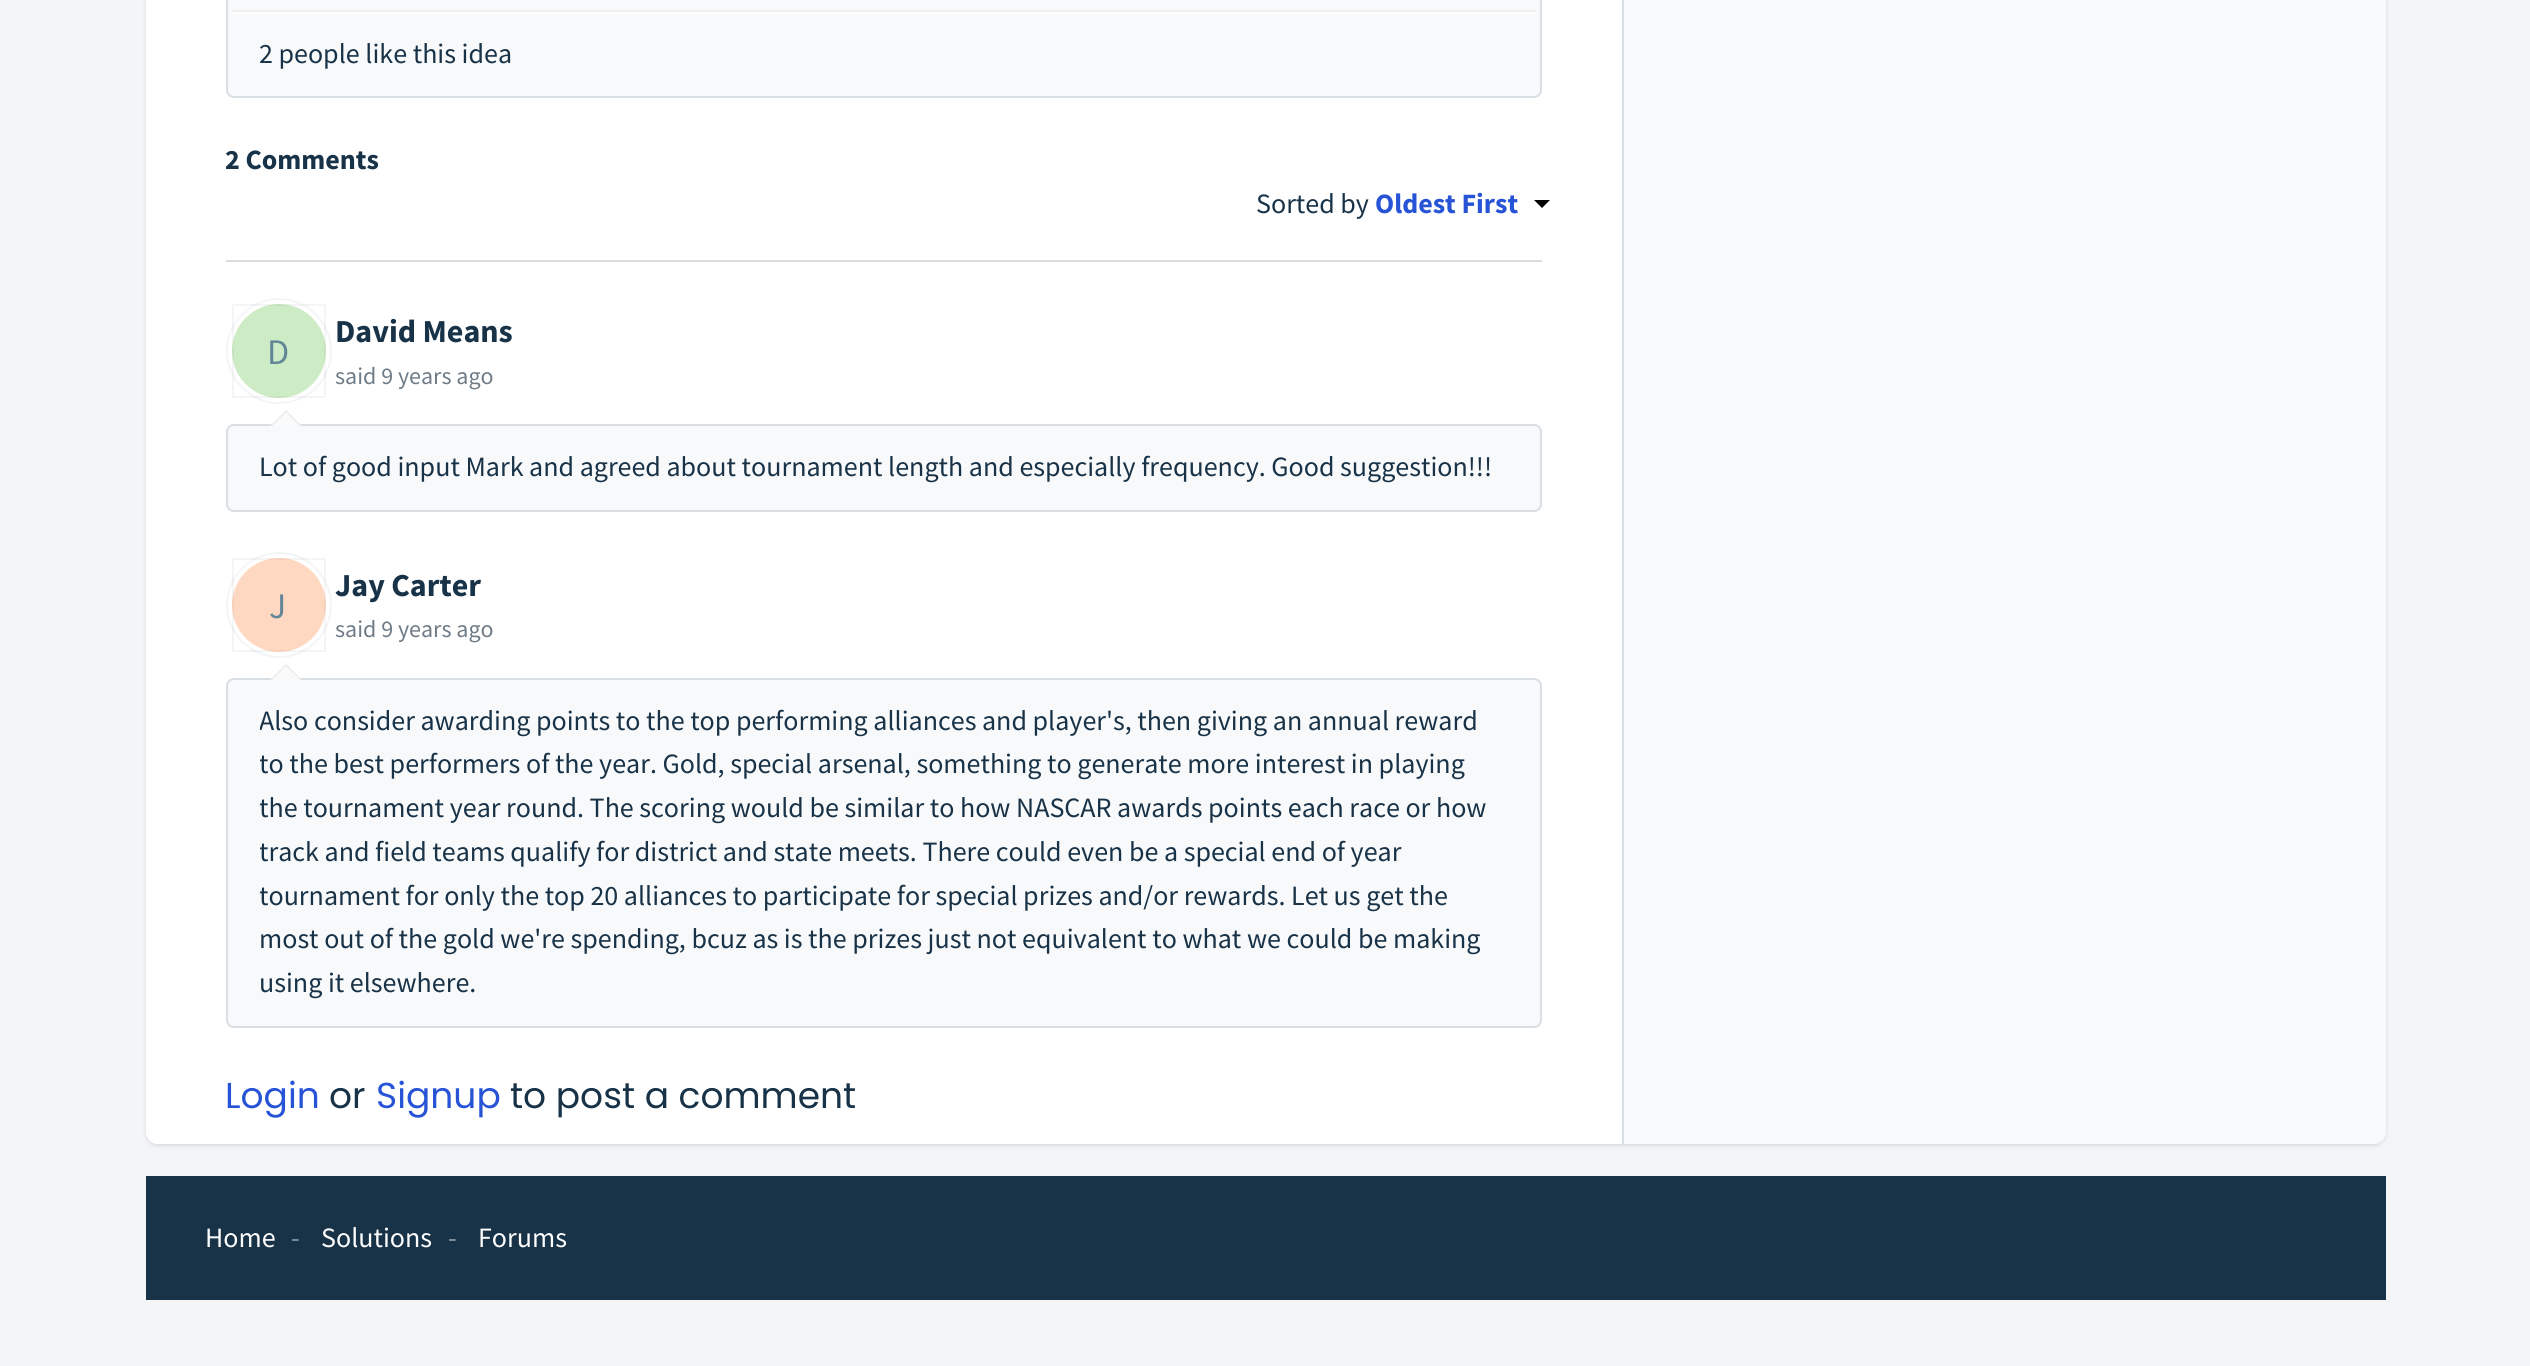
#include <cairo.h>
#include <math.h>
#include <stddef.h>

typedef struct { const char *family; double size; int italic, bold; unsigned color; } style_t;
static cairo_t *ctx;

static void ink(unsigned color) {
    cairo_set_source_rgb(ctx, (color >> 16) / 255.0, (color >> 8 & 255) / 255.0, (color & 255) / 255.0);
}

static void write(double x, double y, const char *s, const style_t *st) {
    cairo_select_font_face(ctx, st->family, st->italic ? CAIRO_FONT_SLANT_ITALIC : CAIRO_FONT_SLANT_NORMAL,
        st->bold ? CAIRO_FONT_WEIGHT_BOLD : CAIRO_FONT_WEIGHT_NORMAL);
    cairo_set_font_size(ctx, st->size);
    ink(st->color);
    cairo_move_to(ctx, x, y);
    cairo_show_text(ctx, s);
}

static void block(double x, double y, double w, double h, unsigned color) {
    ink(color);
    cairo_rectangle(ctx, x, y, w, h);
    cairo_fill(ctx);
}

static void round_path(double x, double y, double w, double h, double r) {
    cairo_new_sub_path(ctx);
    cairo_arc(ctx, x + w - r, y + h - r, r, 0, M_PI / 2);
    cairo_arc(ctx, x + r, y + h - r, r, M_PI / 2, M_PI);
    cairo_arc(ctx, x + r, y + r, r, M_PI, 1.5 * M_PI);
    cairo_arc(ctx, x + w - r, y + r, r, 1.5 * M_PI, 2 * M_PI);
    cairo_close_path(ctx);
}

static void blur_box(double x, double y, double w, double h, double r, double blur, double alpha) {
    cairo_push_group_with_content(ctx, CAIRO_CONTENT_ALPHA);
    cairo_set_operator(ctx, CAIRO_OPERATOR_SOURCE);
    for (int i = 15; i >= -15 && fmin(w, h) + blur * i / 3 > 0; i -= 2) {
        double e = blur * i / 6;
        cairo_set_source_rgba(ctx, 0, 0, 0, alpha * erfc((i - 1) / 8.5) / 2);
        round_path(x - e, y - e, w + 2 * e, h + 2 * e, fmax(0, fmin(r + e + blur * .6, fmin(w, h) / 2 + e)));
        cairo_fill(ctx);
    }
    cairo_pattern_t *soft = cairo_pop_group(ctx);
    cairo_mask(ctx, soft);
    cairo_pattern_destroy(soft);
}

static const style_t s1 = {"Source Sans Pro", 28, 0, 0, 0x183247};
static const style_t s2 = {"Source Sans Pro", 28, 0, 1, 0x183247};
static const style_t s3 = {"Source Sans Pro", 28, 0, 1, 0x2753d7};
static const style_t s4 = {"Source Sans Pro", 36, 0, 0, 0x638699};
static const style_t s5 = {"Source Sans Pro", 32, 0, 1, 0x183247};
static const style_t s6 = {"Source Sans Pro", 24, 0, 0, 0x6f7c87};
static const style_t s7 = {"Poppins", 36, 0, 0, 0x2753d7};
static const style_t s8 = {"Poppins", 36, 0, 0, 0x183247};
static const style_t s9 = {"Source Sans Pro", 28, 0, 0, 0xffffff};
static const style_t s10 = {"Source Sans Pro", 28, 0, 0, 0x8c99a3};

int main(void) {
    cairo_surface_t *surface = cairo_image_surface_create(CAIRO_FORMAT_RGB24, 2530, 1366);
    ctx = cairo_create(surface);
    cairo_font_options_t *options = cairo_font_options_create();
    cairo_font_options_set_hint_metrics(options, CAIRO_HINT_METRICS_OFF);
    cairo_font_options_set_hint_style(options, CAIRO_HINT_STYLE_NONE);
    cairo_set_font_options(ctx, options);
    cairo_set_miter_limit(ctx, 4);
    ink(0xf3f5f7);
    cairo_paint(ctx);
    ink(0x3f3f44);
    blur_box(146, -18, 2240, 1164, 12, 2, 0.15);
    ink(0xf8f9fa);
    round_path(146, -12, 2240, 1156, 12);
    cairo_fill(ctx);
    ink(0xffffff);
    cairo_new_path(ctx);
    cairo_move_to(ctx, 158, -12);
    cairo_line_to(ctx, 1624, -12);
    cairo_line_to(ctx, 1624, 1144);
    cairo_line_to(ctx, 158, 1144);
    cairo_curve_to(ctx, 151.5, 1144, 146, 1138.5, 146, 1132);
    cairo_line_to(ctx, 146, 0);
    cairo_curve_to(ctx, 146, -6.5, 151.5, -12, 158, -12);
    cairo_close_path(ctx);
    cairo_fill(ctx);
    block(1622, 0, 2, 1144, 0xdadfe3);
    ink(0xf8f9fa);
    round_path(227, -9, 1314, 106, 7);
    cairo_fill_preserve(ctx);
    ink(0xdadfe3);
    cairo_stroke(ctx);
    block(232, 10, 1304, 2, 0xefefef);
    block(232, 12, 1304, 2, 0xffffff);
    write(259, 63, "2 people like this idea", &s1);
    write(225, 169, "2 Comments", &s2);
    write(1256, 213, "Sorted by", &s1);
    write(1375, 213, "Oldest First", &s3);
    ink(0x000000);
    cairo_new_path(ctx);
    cairo_move_to(ctx, 1534, 200);
    cairo_line_to(ctx, 1550, 200);
    cairo_line_to(ctx, 1542, 208);
    cairo_close_path(ctx);
    cairo_fill(ctx);
    block(226, 260, 1316, 2, 0xdcdcdc);
    cairo_arc(ctx, 279, 351, 52, 0, 2 * M_PI);
    ink(0xf3f5f7);
    cairo_stroke(ctx);
    ink(0xcdebc4);
    cairo_arc(ctx, 279, 351, 47, 0, 2 * M_PI);
    cairo_fill(ctx);
    cairo_rectangle(ctx, 233, 305, 92, 92);
    cairo_set_source_rgba(ctx, 0, 0, 0, 0.04);
    cairo_stroke(ctx);
    write(267, 364, "D", &s4);
    ink(0xf8f9fa);
    round_path(227, 425, 1314, 86, 7);
    cairo_fill_preserve(ctx);
    ink(0xdadfe3);
    cairo_stroke(ctx);
    ink(0xebebeb);
    cairo_new_path(ctx);
    cairo_move_to(ctx, 302, 426);
    cairo_line_to(ctx, 270, 426);
    cairo_line_to(ctx, 286, 410);
    cairo_close_path(ctx);
    cairo_fill(ctx);
    ink(0xfafafa);
    cairo_new_path(ctx);
    cairo_move_to(ctx, 300, 426);
    cairo_line_to(ctx, 272, 426);
    cairo_line_to(ctx, 286, 412);
    cairo_close_path(ctx);
    cairo_fill(ctx);
    write(335, 342, "David Means", &s5);
    write(335, 384, "said 9 years ago", &s6);
    write(259, 476, "Lot of good input Mark and agreed about tournament length and especially frequency. Good suggestion!!!", &s1);
    cairo_new_path(ctx);
    cairo_arc(ctx, 279, 605, 52, 0, 2 * M_PI);
    ink(0xf3f5f7);
    cairo_stroke(ctx);
    ink(0xffd8c2);
    cairo_arc(ctx, 279, 605, 47, 0, 2 * M_PI);
    cairo_fill(ctx);
    cairo_rectangle(ctx, 233, 559, 92, 92);
    cairo_set_source_rgba(ctx, 0, 0, 0, 0.04);
    cairo_stroke(ctx);
    write(269, 618, "J", &s4);
    ink(0xf8f9fa);
    round_path(227, 679, 1314, 348, 7);
    cairo_fill_preserve(ctx);
    ink(0xdadfe3);
    cairo_stroke(ctx);
    ink(0xebebeb);
    cairo_new_path(ctx);
    cairo_move_to(ctx, 302, 680);
    cairo_line_to(ctx, 270, 680);
    cairo_line_to(ctx, 286, 664);
    cairo_close_path(ctx);
    cairo_fill(ctx);
    ink(0xfafafa);
    cairo_new_path(ctx);
    cairo_move_to(ctx, 300, 680);
    cairo_line_to(ctx, 272, 680);
    cairo_line_to(ctx, 286, 666);
    cairo_close_path(ctx);
    cairo_fill(ctx);
    write(335, 596, "Jay Carter", &s5);
    write(335, 637, "said 9 years ago", &s6);
    cairo_save(ctx);
    cairo_rectangle(ctx, 260, 700, 1248, 306);
    cairo_clip(ctx);
    write(259, 730, "Also consider awarding points to the top performing alliances and player's, then giving an annual reward", &s1);
    write(259, 773, "to the best performers of the year. Gold, special arsenal, something to generate more interest in playing", &s1);
    write(259, 817, "the tournament year round. The scoring would be similar to how NASCAR awards points each race or how", &s1);
    write(259, 861, "track and field teams qualify for district and state meets. There could even be a special end of year", &s1);
    write(259, 905, "tournament for only the top 20 alliances to participate for special prizes and/or rewards. Let us get the", &s1);
    cairo_restore(ctx);
    write(259, 948, "most out of the gold we're spending, bcuz as is the prizes just not equivalent to what we could be making", &s1);
    write(259, 992, "using it elsewhere.", &s1);
    write(225, 1108, "Login", &s7);
    write(329, 1108, "or", &s8);
    write(376, 1108, "Signup", &s7);
    write(510, 1108, "to post a comment", &s8);
    block(146, 1176, 2240, 124, 0x183247);
    write(205, 1247, "Home", &s9);
    write(291, 1247, "-", &s10);
    write(321, 1247, "Solutions", &s9);
    write(448, 1247, "-", &s10);
    write(478, 1247, "Forums", &s9);
    cairo_surface_write_to_png(surface, "screenshot.png");
    cairo_font_options_destroy(options);
    cairo_destroy(ctx);
    cairo_surface_destroy(surface);
    return 0;
}
